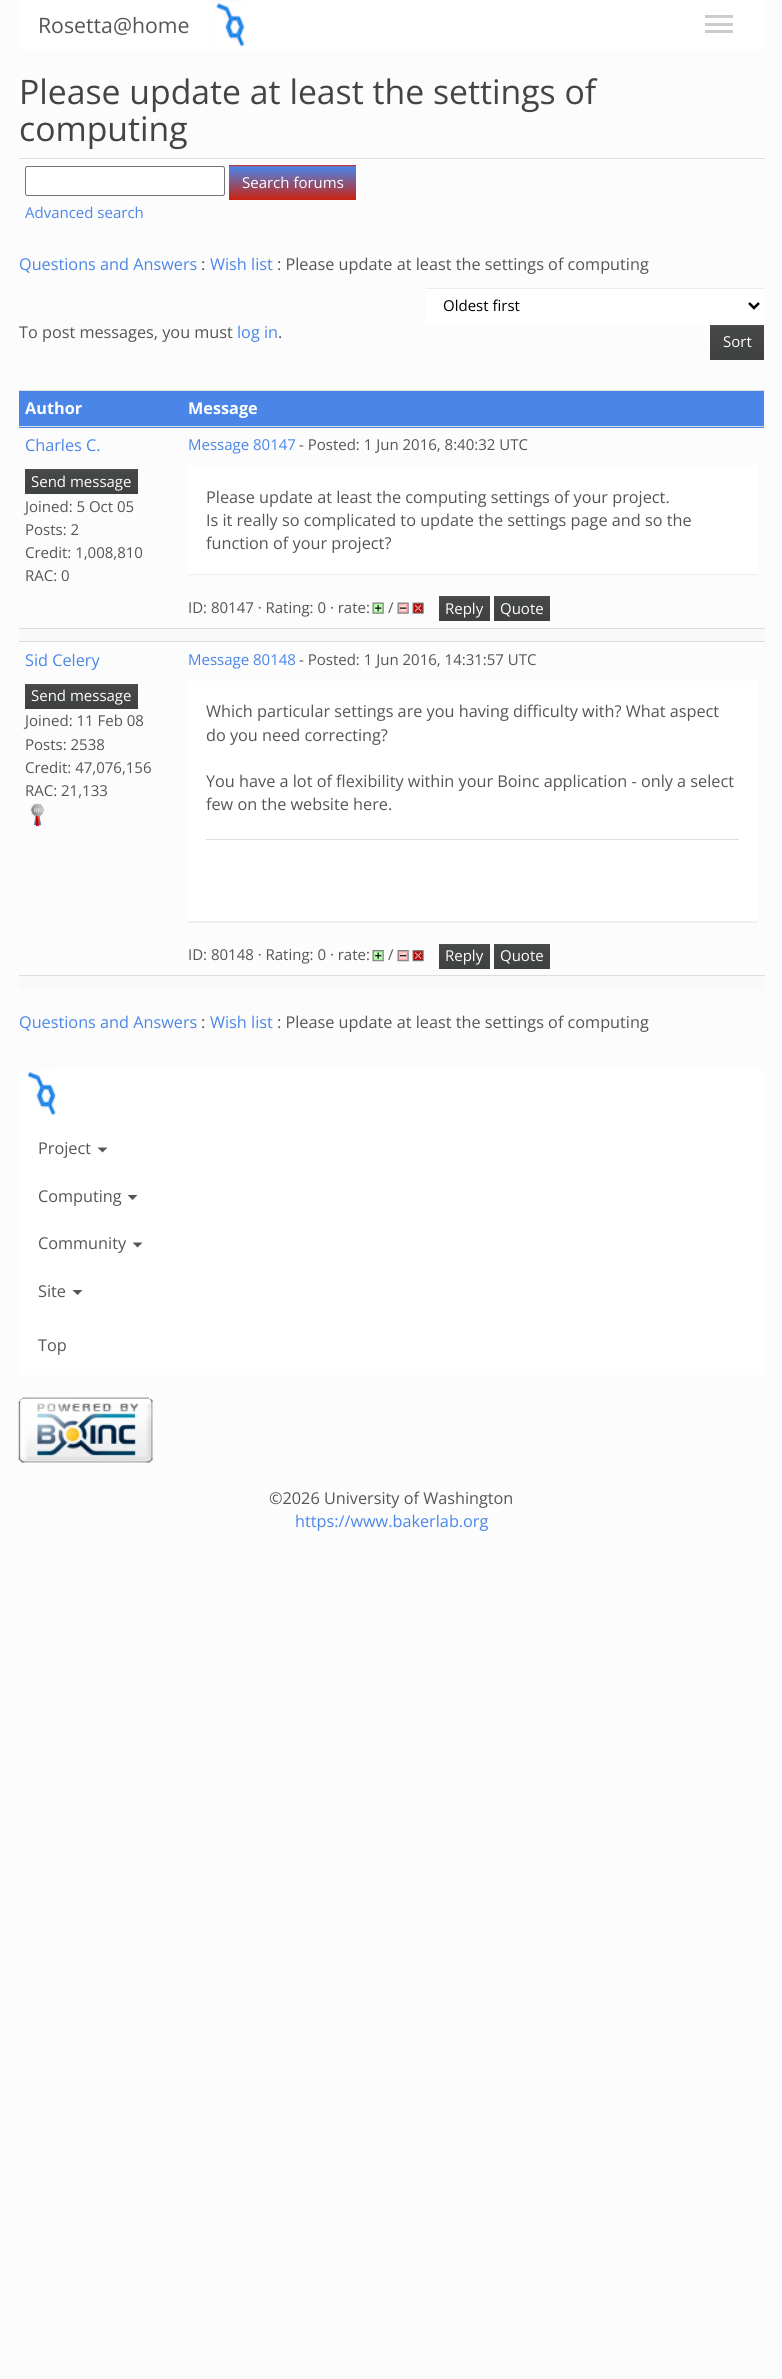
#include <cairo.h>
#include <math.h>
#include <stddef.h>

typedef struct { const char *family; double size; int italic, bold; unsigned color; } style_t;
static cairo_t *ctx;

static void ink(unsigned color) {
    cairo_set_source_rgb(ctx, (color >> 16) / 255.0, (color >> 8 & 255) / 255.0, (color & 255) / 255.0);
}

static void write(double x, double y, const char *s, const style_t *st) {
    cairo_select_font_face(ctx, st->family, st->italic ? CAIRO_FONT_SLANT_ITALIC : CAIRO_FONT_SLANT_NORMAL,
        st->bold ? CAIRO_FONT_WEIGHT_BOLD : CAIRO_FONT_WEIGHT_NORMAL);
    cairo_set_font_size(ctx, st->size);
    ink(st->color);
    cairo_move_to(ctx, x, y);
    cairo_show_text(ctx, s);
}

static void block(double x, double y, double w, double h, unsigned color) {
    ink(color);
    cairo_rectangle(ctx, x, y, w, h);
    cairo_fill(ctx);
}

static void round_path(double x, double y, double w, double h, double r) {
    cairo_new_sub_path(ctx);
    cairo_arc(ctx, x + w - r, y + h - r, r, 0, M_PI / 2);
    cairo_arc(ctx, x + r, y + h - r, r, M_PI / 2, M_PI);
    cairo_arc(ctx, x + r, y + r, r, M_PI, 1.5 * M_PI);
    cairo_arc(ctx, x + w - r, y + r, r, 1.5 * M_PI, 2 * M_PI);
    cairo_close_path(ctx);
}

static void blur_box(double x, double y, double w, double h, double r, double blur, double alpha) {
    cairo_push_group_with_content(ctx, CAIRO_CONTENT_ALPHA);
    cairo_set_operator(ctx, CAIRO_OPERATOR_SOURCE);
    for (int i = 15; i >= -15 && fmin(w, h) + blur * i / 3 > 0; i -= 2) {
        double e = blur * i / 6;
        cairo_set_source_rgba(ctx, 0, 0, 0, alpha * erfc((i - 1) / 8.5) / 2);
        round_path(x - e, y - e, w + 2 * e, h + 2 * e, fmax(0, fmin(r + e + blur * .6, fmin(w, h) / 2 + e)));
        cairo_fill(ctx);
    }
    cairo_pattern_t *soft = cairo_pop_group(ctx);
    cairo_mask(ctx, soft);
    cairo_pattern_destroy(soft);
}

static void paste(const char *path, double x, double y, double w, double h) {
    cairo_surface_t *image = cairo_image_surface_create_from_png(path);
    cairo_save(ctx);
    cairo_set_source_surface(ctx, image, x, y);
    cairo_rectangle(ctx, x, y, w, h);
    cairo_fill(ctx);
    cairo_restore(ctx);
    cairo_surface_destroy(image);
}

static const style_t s1 = {"Open Sans", 21.25, 0, 0, 0x555555};
static const style_t s2 = {"Open Sans", 33.75, 0, 0, 0x444444};
static const style_t s3 = {"Open Sans", 15, 0, 0, 0xffffff};
static const style_t s4 = {"Open Sans", 15, 0, 0, 0x4a86e8};
static const style_t s5 = {"Open Sans", 16.25, 0, 0, 0x4a86e8};
static const style_t s6 = {"Open Sans", 16.25, 0, 0, 0x555555};
static const style_t s7 = {"Open Sans", 15, 0, 0, 0x000000};
static const style_t s8 = {"Open Sans", 16.25, 0, 1, 0xffffff};
static const style_t s9 = {"Open Sans", 15, 0, 0, 0x555555};

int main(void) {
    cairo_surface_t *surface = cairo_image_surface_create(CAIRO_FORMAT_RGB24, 782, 2379);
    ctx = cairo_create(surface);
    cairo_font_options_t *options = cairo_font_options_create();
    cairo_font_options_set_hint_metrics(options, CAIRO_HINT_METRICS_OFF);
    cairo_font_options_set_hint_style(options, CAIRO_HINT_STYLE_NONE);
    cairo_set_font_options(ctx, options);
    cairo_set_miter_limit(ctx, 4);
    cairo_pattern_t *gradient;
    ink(0xfcfcfc);
    cairo_paint(ctx);
    block(19, 0, 745, 50, 0xffffff);
    write(38, 33, "Rosetta@home", &s1);
    paste("pic1.png", 207, 0, 38, 47);
    block(705, 15, 28, 3, 0xcccccc);
    block(705, 23, 28, 3, 0xcccccc);
    block(705, 30, 28, 3, 0xcccccc);
    write(19, 104, "Please update at least the settings of", &s2);
    write(19, 141, "computing", &s2);
    block(19, 158, 746, 1, 0xdddddd);
    ink(0xffffff);
    round_path(25.5, 166.5, 199, 29, 2);
    cairo_fill_preserve(ctx);
    ink(0x767676);
    cairo_set_line_width(ctx, 1);
    cairo_stroke(ctx);
    gradient = cairo_pattern_create_linear(293, 165, 293, 200);
    cairo_pattern_add_color_stop_rgba(gradient, 0, 0.906, 0.145, 0.063, 1);
    cairo_pattern_add_color_stop_rgba(gradient, 0.06, 0.29, 0.525, 0.91, 1);
    cairo_pattern_add_color_stop_rgba(gradient, 1, 0.796, 0.129, 0.055, 1);
    cairo_set_source(ctx, gradient);
    cairo_pattern_destroy(gradient);
    cairo_rectangle(ctx, 229, 165, 127, 35);
    cairo_fill(ctx);
    write(242, 188, "Search forums", &s3);
    write(25, 218, "Advanced search", &s4);
    write(19, 270, "Questions and Answers", &s5);
    write(201, 270, ":", &s6);
    write(210, 270, "Wish list", &s5);
    write(277, 270, ": Please update at least the settings of computing", &s6);
    write(19, 338, "To post messages, you must", &s6);
    write(237, 338, "log in", &s5);
    write(278, 338, ".", &s6);
    block(426, 289, 338, 36, 0xffffff);
    block(426, 288, 338, 1, 0xececec);
    cairo_new_path(ctx);
    cairo_move_to(ctx, 749, 303);
    cairo_line_to(ctx, 754, 308);
    cairo_line_to(ctx, 759, 303);
    ink(0x000000);
    cairo_set_line_width(ctx, 2.5);
    cairo_stroke(ctx);
    write(443, 311, "Oldest first", &s7);
    gradient = cairo_pattern_create_linear(737, 325, 737, 360);
    cairo_pattern_add_color_stop_rgba(gradient, 0, 0.31, 0.318, 0.318, 1);
    cairo_pattern_add_color_stop_rgba(gradient, 0.06, 0.278, 0.286, 0.286, 1);
    cairo_pattern_add_color_stop_rgba(gradient, 1, 0.247, 0.255, 0.255, 1);
    cairo_set_source(ctx, gradient);
    cairo_pattern_destroy(gradient);
    cairo_rectangle(ctx, 710, 325, 54, 35);
    cairo_fill(ctx);
    write(723, 347, "Sort", &s3);
    block(19, 391, 745, 37, 0x4a86e8);
    write(25, 414, "Author", &s8);
    block(19, 390, 746, 1, 0xdddddd);
    write(188, 414, "Message", &s8);
    write(25, 451, "Charles C.", &s5);
    gradient = cairo_pattern_create_linear(81, 469, 81, 494);
    cairo_pattern_add_color_stop_rgba(gradient, 0, 0.31, 0.318, 0.318, 1);
    cairo_pattern_add_color_stop_rgba(gradient, 0.06, 0.278, 0.286, 0.286, 1);
    cairo_pattern_add_color_stop_rgba(gradient, 1, 0.247, 0.255, 0.255, 1);
    cairo_set_source(ctx, gradient);
    cairo_pattern_destroy(gradient);
    cairo_rectangle(ctx, 25, 469, 113, 25);
    cairo_fill(ctx);
    write(31, 487, "Send message", &s3);
    write(25, 512, "Joined: 5 Oct 05", &s9);
    write(25, 535, "Posts: 2", &s9);
    write(25, 558, "Credit: 1,008,810", &s9);
    write(25, 581, "RAC: 0", &s9);
    block(19, 426, 746, 1, 0xdddddd);
    write(188, 450, "Message 80147", &s4);
    write(299, 450, "- Posted: 1 Jun 2016, 8:40:32 UTC", &s9);
    ink(0x000000);
    blur_box(188, 468, 570, 107, 0, 0.5, 0.05);
    block(188, 466, 570, 108, 0xffffff);
    write(206, 503, "Please update at least the computing settings of your project.", &s6);
    write(206, 526, "Is it really so complicated to update the settings page and so the", &s6);
    write(206, 549, "function of your project?", &s6);
    write(188, 613, "ID: 80147 · Rating: 0 · rate:", &s9);
    paste("pic2.png", 372, 602, 12, 12);
    write(388, 613, "/", &s9);
    paste("pic3.png", 397, 602, 12, 12);
    paste("pic4.png", 412, 602, 12, 12);
    gradient = cairo_pattern_create_linear(464, 596, 464, 621);
    cairo_pattern_add_color_stop_rgba(gradient, 0, 0.31, 0.318, 0.318, 1);
    cairo_pattern_add_color_stop_rgba(gradient, 0.06, 0.278, 0.286, 0.286, 1);
    cairo_pattern_add_color_stop_rgba(gradient, 1, 0.247, 0.255, 0.255, 1);
    cairo_set_source(ctx, gradient);
    cairo_pattern_destroy(gradient);
    cairo_rectangle(ctx, 439, 596, 51, 25);
    cairo_fill(ctx);
    write(445, 614, "Reply", &s3);
    gradient = cairo_pattern_create_linear(522, 596, 522, 621);
    cairo_pattern_add_color_stop_rgba(gradient, 0, 0.31, 0.318, 0.318, 1);
    cairo_pattern_add_color_stop_rgba(gradient, 0.06, 0.278, 0.286, 0.286, 1);
    cairo_pattern_add_color_stop_rgba(gradient, 1, 0.247, 0.255, 0.255, 1);
    cairo_set_source(ctx, gradient);
    cairo_pattern_destroy(gradient);
    cairo_rectangle(ctx, 494, 596, 56, 25);
    cairo_fill(ctx);
    write(500, 614, "Quote", &s3);
    block(19, 629, 745, 12, 0xf9f9f9);
    block(19, 628, 746, 1, 0xdddddd);
    write(25, 666, "Sid Celery", &s5);
    gradient = cairo_pattern_create_linear(81, 684, 81, 709);
    cairo_pattern_add_color_stop_rgba(gradient, 0, 0.31, 0.318, 0.318, 1);
    cairo_pattern_add_color_stop_rgba(gradient, 0.06, 0.278, 0.286, 0.286, 1);
    cairo_pattern_add_color_stop_rgba(gradient, 1, 0.247, 0.255, 0.255, 1);
    cairo_set_source(ctx, gradient);
    cairo_pattern_destroy(gradient);
    cairo_rectangle(ctx, 25, 684, 113, 25);
    cairo_fill(ctx);
    write(31, 701, "Send message", &s3);
    write(25, 726, "Joined: 11 Feb 08", &s9);
    write(25, 750, "Posts: 2538", &s9);
    write(25, 773, "Credit: 47,076,156", &s9);
    write(25, 796, "RAC: 21,133", &s9);
    paste("pic5.png", 30, 803, 14, 24);
    block(19, 641, 746, 1, 0xdddddd);
    write(188, 665, "Message 80148", &s4);
    write(299, 665, "- Posted: 1 Jun 2016, 14:31:57 UTC", &s9);
    ink(0x000000);
    blur_box(188, 683, 570, 240, 0, 0.5, 0.05);
    block(188, 681, 570, 240, 0xffffff);
    write(206, 717, "Which particular settings are you having difficulty with? What aspect", &s6);
    write(206, 741, "do you need correcting?", &s6);
    write(206, 787, "You have a lot of flexibility within your Boinc application - only a select", &s6);
    write(206, 810, "few on the website here.", &s6);
    block(206, 839, 533, 1, 0xdddddd);
    write(188, 960, "ID: 80148 · Rating: 0 · rate:", &s9);
    paste("pic6.png", 372, 950, 12, 12);
    write(388, 960, "/", &s9);
    paste("pic7.png", 397, 950, 12, 12);
    paste("pic8.png", 412, 950, 12, 12);
    gradient = cairo_pattern_create_linear(464, 944, 464, 969);
    cairo_pattern_add_color_stop_rgba(gradient, 0, 0.31, 0.318, 0.318, 1);
    cairo_pattern_add_color_stop_rgba(gradient, 0.06, 0.278, 0.286, 0.286, 1);
    cairo_pattern_add_color_stop_rgba(gradient, 1, 0.247, 0.255, 0.255, 1);
    cairo_set_source(ctx, gradient);
    cairo_pattern_destroy(gradient);
    cairo_rectangle(ctx, 439, 944, 51, 25);
    cairo_fill(ctx);
    write(445, 961, "Reply", &s3);
    gradient = cairo_pattern_create_linear(522, 944, 522, 969);
    cairo_pattern_add_color_stop_rgba(gradient, 0, 0.31, 0.318, 0.318, 1);
    cairo_pattern_add_color_stop_rgba(gradient, 0.06, 0.278, 0.286, 0.286, 1);
    cairo_pattern_add_color_stop_rgba(gradient, 1, 0.247, 0.255, 0.255, 1);
    cairo_set_source(ctx, gradient);
    cairo_pattern_destroy(gradient);
    cairo_rectangle(ctx, 494, 944, 56, 25);
    cairo_fill(ctx);
    write(500, 961, "Quote", &s3);
    block(19, 976, 745, 13, 0xf9f9f9);
    block(19, 975, 746, 1, 0xdddddd);
    write(19, 1028, "Questions and Answers", &s5);
    write(201, 1028, ":", &s6);
    write(210, 1028, "Wish list", &s5);
    write(277, 1028, ": Please update at least the settings of computing", &s6);
    block(19, 1069, 745, 306, 0xffffff);
    paste("pic9.png", 19, 1069, 38, 47);
    write(38, 1154, "Project", &s6);
    cairo_new_path(ctx);
    cairo_move_to(ctx, 97.5, 1147.5);
    cairo_line_to(ctx, 107.5, 1147.5);
    cairo_line_to(ctx, 102.5, 1152.5);
    cairo_close_path(ctx);
    cairo_fill(ctx);
    write(38, 1202, "Computing", &s6);
    cairo_new_path(ctx);
    cairo_move_to(ctx, 127.5, 1195);
    cairo_line_to(ctx, 137.5, 1195);
    cairo_line_to(ctx, 132.5, 1200);
    cairo_close_path(ctx);
    cairo_fill(ctx);
    write(38, 1249, "Community", &s6);
    cairo_new_path(ctx);
    cairo_move_to(ctx, 132.5, 1242.5);
    cairo_line_to(ctx, 142.5, 1242.5);
    cairo_line_to(ctx, 137.5, 1247.5);
    cairo_close_path(ctx);
    cairo_fill(ctx);
    write(38, 1297, "Site", &s6);
    cairo_new_path(ctx);
    cairo_move_to(ctx, 72.5, 1290);
    cairo_line_to(ctx, 82.5, 1290);
    cairo_line_to(ctx, 77.5, 1295);
    cairo_close_path(ctx);
    cairo_fill(ctx);
    write(38, 1351, "Top", &s6);
    paste("pic10.png", 18, 1397, 135, 66);
    write(269, 1504, "©2026 University of Washington", &s6);
    write(295, 1527, "https://www.bakerlab.org", &s5);
    cairo_surface_write_to_png(surface, "screenshot.png");
    cairo_font_options_destroy(options);
    cairo_destroy(ctx);
    cairo_surface_destroy(surface);
    return 0;
}
